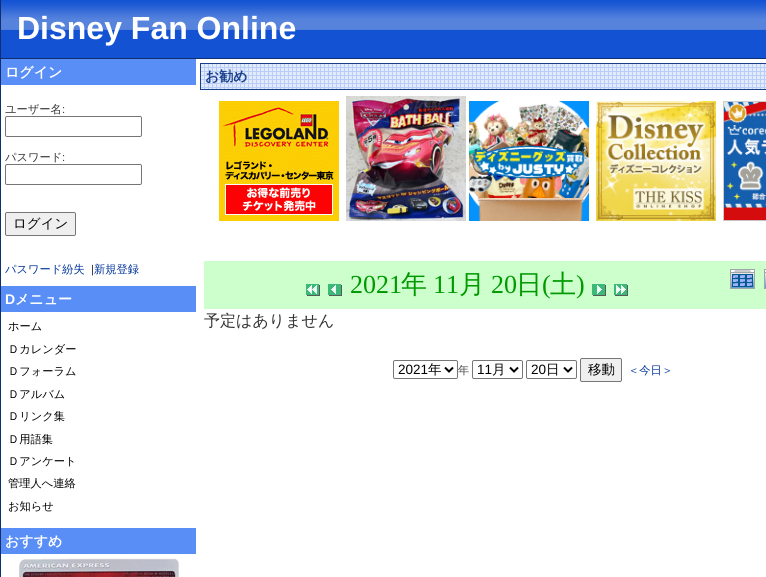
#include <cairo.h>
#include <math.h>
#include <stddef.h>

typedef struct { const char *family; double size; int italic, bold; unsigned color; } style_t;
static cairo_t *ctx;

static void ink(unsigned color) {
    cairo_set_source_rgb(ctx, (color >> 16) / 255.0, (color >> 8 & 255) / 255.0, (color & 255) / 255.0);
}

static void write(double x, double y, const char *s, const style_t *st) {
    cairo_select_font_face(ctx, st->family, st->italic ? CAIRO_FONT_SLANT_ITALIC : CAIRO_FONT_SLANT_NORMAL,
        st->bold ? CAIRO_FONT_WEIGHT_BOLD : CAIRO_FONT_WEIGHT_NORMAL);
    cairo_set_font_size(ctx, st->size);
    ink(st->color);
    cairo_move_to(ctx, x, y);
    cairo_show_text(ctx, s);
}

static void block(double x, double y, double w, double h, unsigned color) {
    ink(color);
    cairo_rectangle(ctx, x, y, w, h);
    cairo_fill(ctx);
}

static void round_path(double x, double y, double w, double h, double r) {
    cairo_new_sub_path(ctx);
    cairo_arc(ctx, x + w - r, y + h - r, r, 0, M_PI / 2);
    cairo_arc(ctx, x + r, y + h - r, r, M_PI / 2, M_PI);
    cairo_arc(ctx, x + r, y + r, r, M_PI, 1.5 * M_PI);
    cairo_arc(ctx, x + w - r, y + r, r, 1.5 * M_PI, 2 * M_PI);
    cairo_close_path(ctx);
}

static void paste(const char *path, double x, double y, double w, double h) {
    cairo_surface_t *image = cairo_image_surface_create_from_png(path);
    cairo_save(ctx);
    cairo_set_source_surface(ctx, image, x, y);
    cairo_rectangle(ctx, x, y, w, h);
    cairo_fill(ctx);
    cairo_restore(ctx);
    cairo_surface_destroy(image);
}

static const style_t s1 = {"Liberation Sans", 32, 0, 1, 0xffffff};
static const style_t s2 = {"WenQuanYi Zen Hei", 14, 0, 1, 0xffffff};
static const style_t s3 = {"WenQuanYi Zen Hei Medium", 11.25, 0, 0, 0x333333};
static const style_t s4 = {"Liberation Sans", 11.25, 0, 0, 0x333333};
static const style_t s5 = {"WenQuanYi Zen Hei Medium", 13.5, 0, 0, 0x000000};
static const style_t s6 = {"WenQuanYi Zen Hei Medium", 11.25, 0, 0, 0x003399};
static const style_t s7 = {"Liberation Sans", 14, 0, 1, 0xffffff};
static const style_t s8 = {"WenQuanYi Zen Hei Medium", 11.25, 0, 0, 0x000000};
static const style_t s9 = {"WenQuanYi Zen Hei", 14, 0, 1, 0x193f8a};
static const style_t s10 = {"Liberation Serif", 26, 0, 0, 0x009900};
static const style_t s11 = {"WenQuanYi Zen Hei Medium", 26, 0, 0, 0x009900};
static const style_t s12 = {"WenQuanYi Zen Hei Medium", 16, 0, 0, 0x333333};
static const style_t s13 = {"Liberation Sans", 13.5, 0, 0, 0x000000};
static const style_t s14 = {"WenQuanYi Zen Hei Medium", 11.25, 0, 0, 0x444444};

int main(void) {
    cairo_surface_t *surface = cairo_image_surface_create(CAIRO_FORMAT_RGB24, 766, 577);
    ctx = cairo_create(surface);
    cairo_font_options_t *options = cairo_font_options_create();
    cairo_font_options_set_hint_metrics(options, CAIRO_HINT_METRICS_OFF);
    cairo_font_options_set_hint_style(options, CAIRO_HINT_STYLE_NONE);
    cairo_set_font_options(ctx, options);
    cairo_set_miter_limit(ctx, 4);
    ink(0xffffff);
    cairo_paint(ctx);
    block(0, 0, 1, 577, 0x0f2f70);
    paste("pic1.png", 1, 0, 765, 58);
    block(1, 58, 765, 1, 0x0f2f70);
    write(17, 39, "Disney Fan Online", &s1);
    block(1, 59, 195, 26, 0x598ef7);
    write(5, 77, "ログイン", &s2);
    write(5, 113, "ユーザー名", &s3);
    write(62, 113, ":", &s4);
    round_path(5.5, 116.5, 136, 20, 1.5);
    ink(0x767676);
    cairo_set_line_width(ctx, 1);
    cairo_stroke(ctx);
    write(5, 161, "パスワード", &s3);
    write(62, 161, ":", &s4);
    round_path(5.5, 164.5, 136, 20, 1.5);
    ink(0x767676);
    cairo_stroke(ctx);
    ink(0xefefef);
    round_path(5.5, 212.5, 70, 23, 1.5);
    cairo_fill_preserve(ctx);
    ink(0x767676);
    cairo_stroke(ctx);
    write(13, 228, "ログイン", &s5);
    write(5, 273, "パスワード紛失", &s6);
    write(91, 273, "|", &s4);
    write(94, 273, "新規登録", &s6);
    block(1, 286, 195, 26, 0x598ef7);
    write(5, 304, "D", &s7);
    write(15, 304, "メニュー", &s2);
    write(8, 330, "ホーム", &s8);
    write(8, 353, "Ｄカレンダー", &s8);
    write(8, 375, "Ｄフォーラム", &s8);
    write(8, 398, "Ｄアルバム", &s8);
    write(8, 420, "Ｄリンク集", &s8);
    write(8, 443, "Ｄ用語集", &s8);
    write(8, 465, "Ｄアンケート", &s8);
    write(8, 487, "管理人へ連絡", &s8);
    write(8, 510, "お知らせ", &s8);
    block(1, 528, 195, 26, 0x598ef7);
    write(5, 546, "おすすめ", &s2);
    paste("pic2.png", 19, 558, 160, 19);
    paste("pic3.png", 201, 64, 565, 25);
    cairo_rectangle(ctx, 200.5, 63.5, 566, 26);
    ink(0x193f8a);
    cairo_stroke(ctx);
    write(205, 81, "お勧め", &s9);
    paste("pic4.png", 219, 101, 120, 120);
    paste("pic5.png", 346, 96, 120, 125);
    paste("pic6.png", 469, 101, 120, 120);
    paste("pic7.png", 596, 101, 120, 120);
    paste("pic8.png", 723, 101, 43, 120);
    block(204, 261, 562, 48, 0xccffcc);
    paste("pic9.png", 306, 284, 14, 12);
    paste("pic10.png", 328, 284, 14, 12);
    write(350, 293, "2021", &s10);
    write(401, 293, "年", &s11);
    write(433, 293, "11", &s10);
    write(459, 293, "月", &s11);
    write(491, 293, "20", &s10);
    write(516, 293, "日", &s11);
    write(542, 293, "(", &s10);
    write(550, 293, "土", &s11);
    write(576, 293, ")", &s10);
    paste("pic11.png", 592, 284, 14, 12);
    paste("pic12.png", 614, 284, 14, 12);
    paste("pic13.png", 730, 269, 25, 20);
    paste("pic14.png", 764, 269, 2, 20);
    write(204, 326, "予定はありません", &s12);
    round_path(393.5, 360.5, 64, 18, 1.5);
    ink(0x767676);
    cairo_stroke(ctx);
    cairo_new_path(ctx);
    cairo_move_to(ctx, 445, 367.5);
    cairo_line_to(ctx, 449, 371.5);
    cairo_line_to(ctx, 453, 367.5);
    ink(0x000000);
    cairo_set_line_width(ctx, 2);
    cairo_stroke(ctx);
    write(398, 374, "2021", &s13);
    write(428, 374, "年", &s5);
    write(458, 374, "年", &s14);
    round_path(472.5, 360.5, 50, 18, 1.5);
    ink(0x767676);
    cairo_set_line_width(ctx, 1);
    cairo_stroke(ctx);
    cairo_new_path(ctx);
    cairo_move_to(ctx, 510, 367.5);
    cairo_line_to(ctx, 514, 371.5);
    cairo_line_to(ctx, 518, 367.5);
    ink(0x000000);
    cairo_set_line_width(ctx, 2);
    cairo_stroke(ctx);
    write(477, 374, "11", &s13);
    write(492, 374, "月", &s5);
    round_path(526.5, 360.5, 50, 18, 1.5);
    ink(0x767676);
    cairo_set_line_width(ctx, 1);
    cairo_stroke(ctx);
    cairo_new_path(ctx);
    cairo_move_to(ctx, 564, 367.5);
    cairo_line_to(ctx, 568, 371.5);
    cairo_line_to(ctx, 572, 367.5);
    ink(0x000000);
    cairo_set_line_width(ctx, 2);
    cairo_stroke(ctx);
    write(531, 374, "20", &s13);
    write(546, 374, "日", &s5);
    ink(0xefefef);
    round_path(580.5, 358.5, 41, 23, 1.5);
    cairo_fill_preserve(ctx);
    ink(0x767676);
    cairo_set_line_width(ctx, 1);
    cairo_stroke(ctx);
    write(588, 374, "移動", &s5);
    write(628, 374, "＜今日＞", &s6);
    cairo_surface_write_to_png(surface, "screenshot.png");
    cairo_font_options_destroy(options);
    cairo_destroy(ctx);
    cairo_surface_destroy(surface);
    return 0;
}
